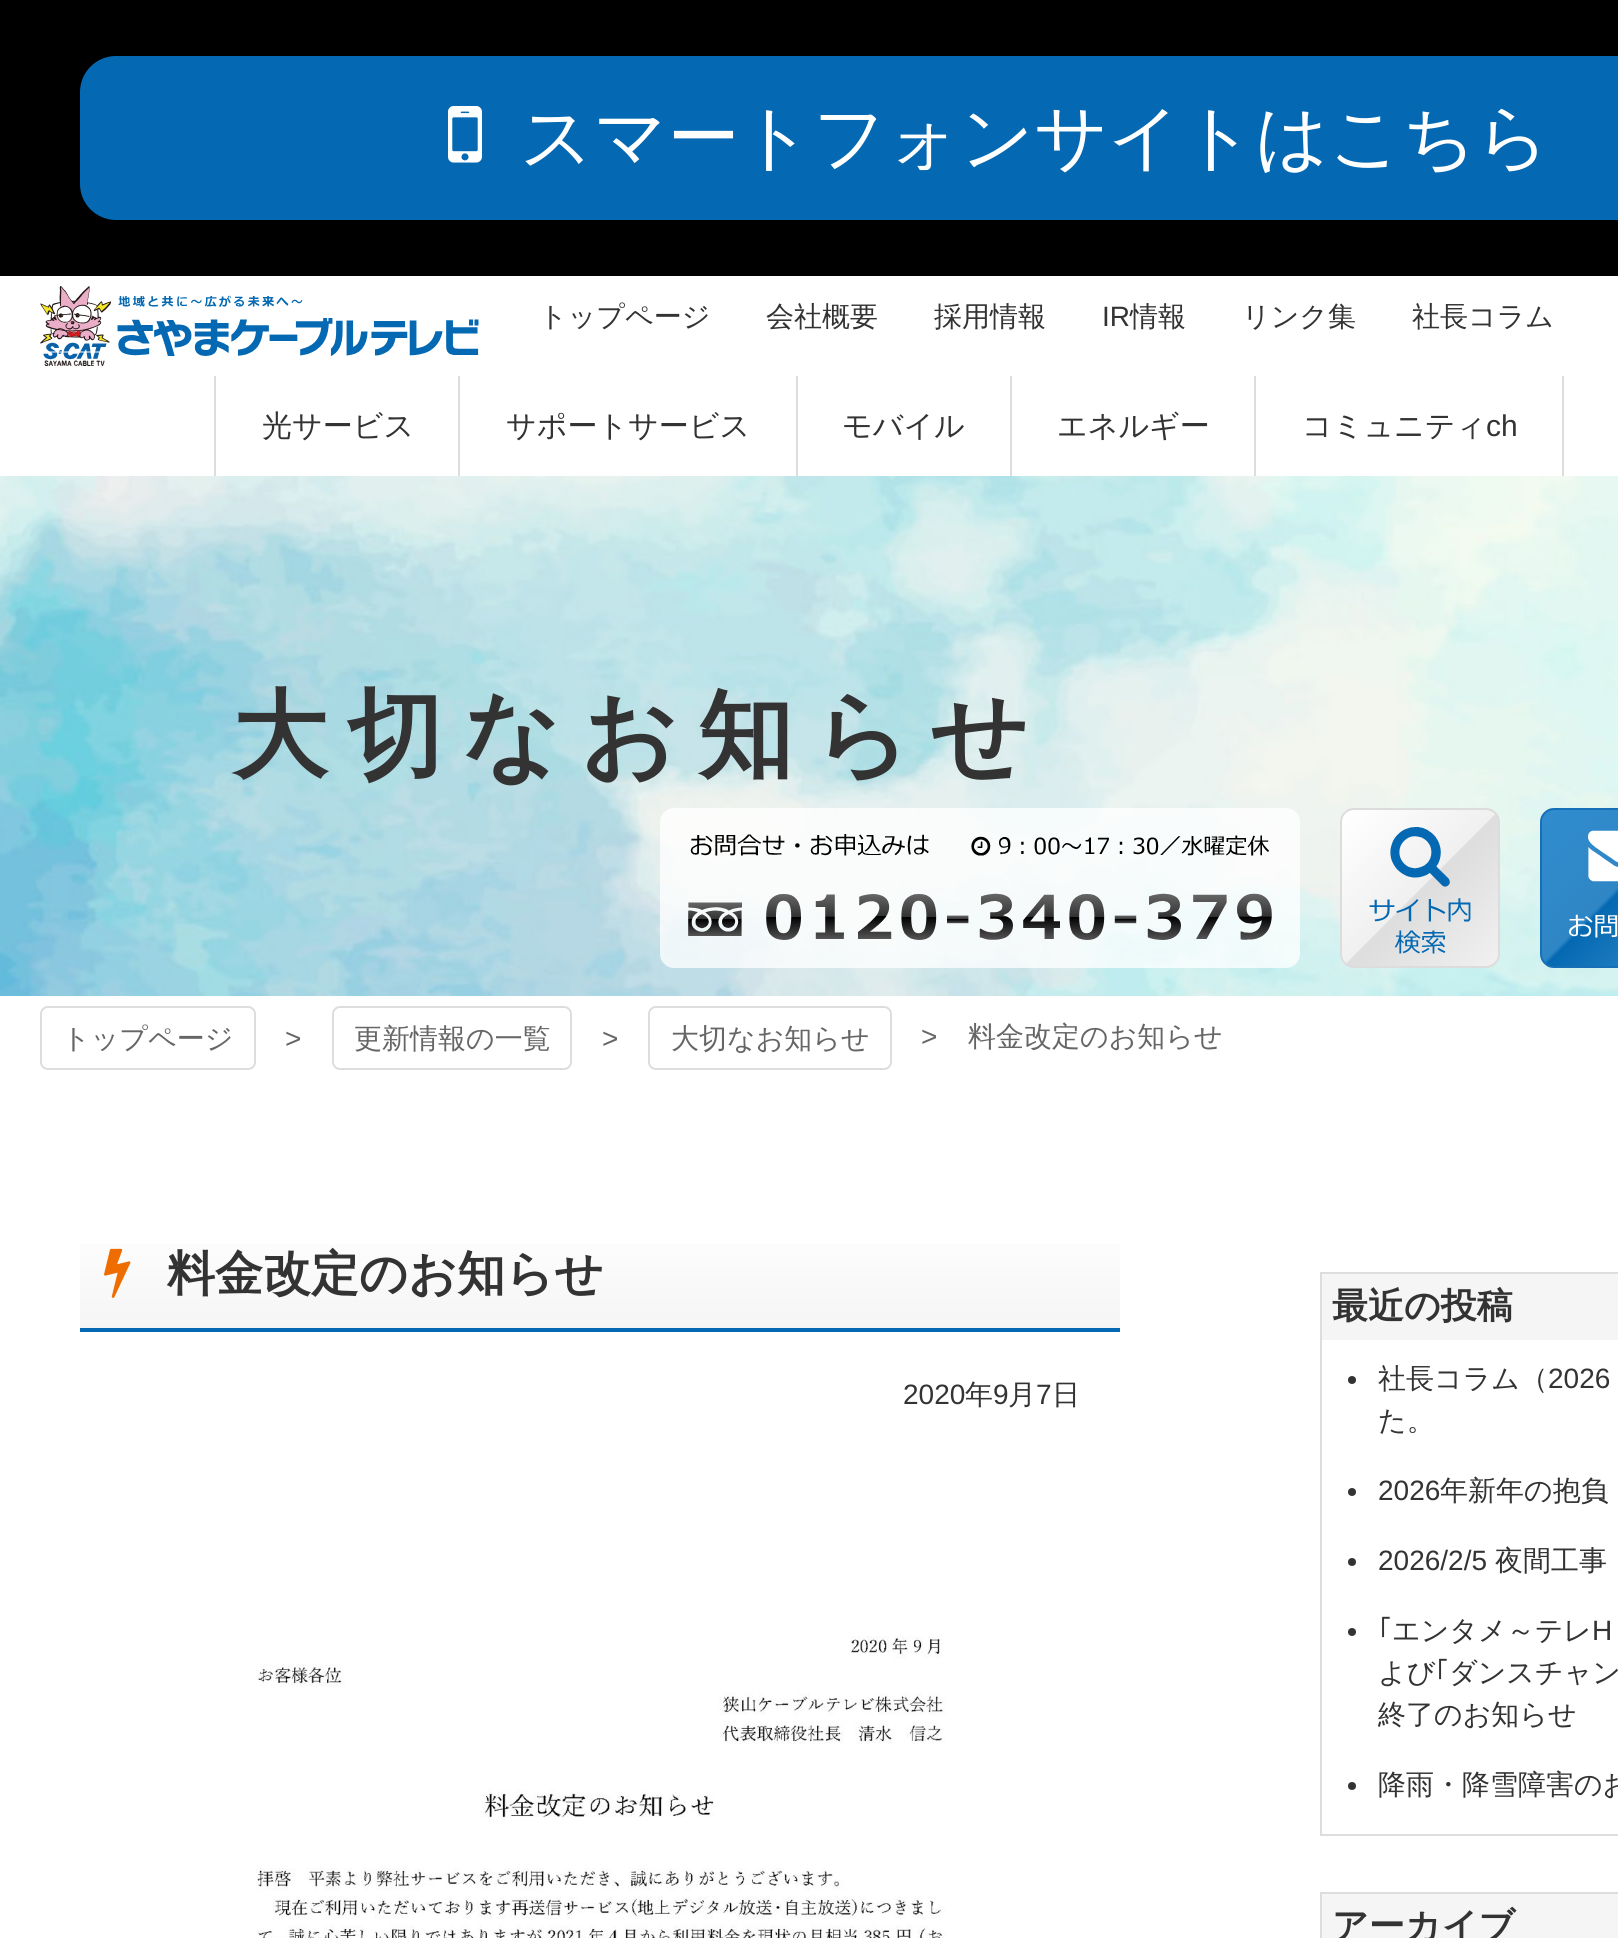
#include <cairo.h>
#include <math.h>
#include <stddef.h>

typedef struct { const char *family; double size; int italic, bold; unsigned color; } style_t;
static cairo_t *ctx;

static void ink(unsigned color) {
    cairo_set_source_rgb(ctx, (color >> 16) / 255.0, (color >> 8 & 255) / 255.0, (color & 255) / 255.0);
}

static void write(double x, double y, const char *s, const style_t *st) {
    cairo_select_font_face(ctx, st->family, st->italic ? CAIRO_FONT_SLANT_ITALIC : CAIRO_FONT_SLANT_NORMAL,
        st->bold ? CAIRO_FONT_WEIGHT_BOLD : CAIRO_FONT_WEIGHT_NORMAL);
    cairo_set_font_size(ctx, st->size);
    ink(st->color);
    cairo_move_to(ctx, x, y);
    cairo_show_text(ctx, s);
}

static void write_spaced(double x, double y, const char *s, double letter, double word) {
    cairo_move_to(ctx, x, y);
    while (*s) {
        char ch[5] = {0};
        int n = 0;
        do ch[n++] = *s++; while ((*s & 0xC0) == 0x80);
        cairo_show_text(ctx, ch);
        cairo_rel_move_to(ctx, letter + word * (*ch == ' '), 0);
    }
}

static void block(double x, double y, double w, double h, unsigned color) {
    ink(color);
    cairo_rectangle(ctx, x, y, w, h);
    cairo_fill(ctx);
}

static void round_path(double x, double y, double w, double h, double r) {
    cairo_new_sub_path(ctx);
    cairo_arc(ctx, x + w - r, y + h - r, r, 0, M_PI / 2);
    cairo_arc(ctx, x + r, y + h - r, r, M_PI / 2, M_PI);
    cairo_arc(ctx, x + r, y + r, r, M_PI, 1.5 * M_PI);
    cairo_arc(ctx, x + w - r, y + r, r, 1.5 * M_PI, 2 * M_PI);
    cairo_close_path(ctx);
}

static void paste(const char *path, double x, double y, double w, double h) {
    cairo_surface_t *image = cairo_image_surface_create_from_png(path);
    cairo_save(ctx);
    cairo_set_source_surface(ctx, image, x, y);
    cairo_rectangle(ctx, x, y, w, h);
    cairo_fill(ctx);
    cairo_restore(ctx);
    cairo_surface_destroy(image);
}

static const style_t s1 = {"WenQuanYi Zen Hei Medium", 72, 0, 0, 0xffffff};
static const style_t s2 = {"WenQuanYi Zen Hei Medium", 28, 0, 0, 0x333333};
static const style_t s3 = {"Liberation Sans", 28, 0, 0, 0x333333};
static const style_t s4 = {"WenQuanYi Zen Hei Medium", 30, 0, 0, 0x333333};
static const style_t s5 = {"Liberation Sans", 30, 0, 0, 0x333333};
static const style_t s6 = {"WenQuanYi Zen Hei Medium", 28, 0, 0, 0x666666};
static const style_t s7 = {"Liberation Sans", 28, 0, 0, 0x666666};
static const style_t s8 = {"WenQuanYi Zen Hei", 48, 0, 1, 0x333333};
static const style_t s9 = {"WenQuanYi Zen Hei", 36, 0, 1, 0x333333};
static const style_t s10 = {"IPAPGothic", 28, 0, 0, 0x333333};

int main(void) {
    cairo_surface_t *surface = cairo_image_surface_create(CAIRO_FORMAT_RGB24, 1618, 1938);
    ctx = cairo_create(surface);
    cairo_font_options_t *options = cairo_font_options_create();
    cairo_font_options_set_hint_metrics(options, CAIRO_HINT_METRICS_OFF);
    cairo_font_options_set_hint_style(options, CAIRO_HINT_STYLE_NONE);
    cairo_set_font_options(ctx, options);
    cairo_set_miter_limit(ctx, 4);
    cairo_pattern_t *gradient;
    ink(0xffffff);
    cairo_paint(ctx);
    block(0, 0, 1618, 276, 0x000000);
    ink(0x0469b2);
    round_path(80, 56, 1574, 164, 36);
    cairo_fill(ctx);
    paste("pic1.png", 448, 106, 34, 57);
    write(520, 162, "スマートフォンサイトはこちら", &s1);
    paste("pic2.png", 40, 286, 439, 80);
    write(539, 326, "トップページ", &s2);
    write(766, 326, "会社概要", &s2);
    write(934, 326, "採用情報", &s2);
    write(1102, 326, "IR", &s3);
    write(1130, 326, "情報", &s2);
    write(1242, 326, "リンク集", &s2);
    write(1412, 326, "社長コラム", &s2);
    block(214, 376, 2, 100, 0xdddddd);
    write(262, 436, "光サービス", &s4);
    block(458, 376, 2, 100, 0xdddddd);
    write(506, 436, "サポートサービス", &s4);
    block(796, 376, 2, 100, 0xdddddd);
    write(842, 436, "モバイル", &s4);
    block(1010, 376, 2, 100, 0xdddddd);
    write(1057, 436, "エネルギー", &s4);
    block(1254, 376, 2, 100, 0xdddddd);
    write(1302, 436, "コミュニティ", &s4);
    write(1486, 436, "ch", &s5);
    block(1562, 376, 2, 100, 0xdddddd);
    paste("pic3.png", 0, 476, 1618, 520);
    cairo_select_font_face(ctx, "WenQuanYi Zen Hei", CAIRO_FONT_SLANT_NORMAL, CAIRO_FONT_WEIGHT_BOLD);
    cairo_set_font_size(ctx, 96);
    ink(0x333333);
    write_spaced(232, 768, "大切なお知らせ", 19.25, 0);
    cairo_set_source_rgba(ctx, 1, 1, 1, 0.5);
    round_path(660, 808, 640, 160, 14);
    cairo_fill(ctx);
    paste("pic4.png", 660, 808, 640, 160);
    paste("pic5.png", 1340, 808, 160, 160);
    paste("pic6.png", 1540, 808, 78, 160);
    round_path(41, 1007, 214, 62, 7);
    ink(0xdddddd);
    cairo_stroke(ctx);
    write(62, 1048, "トップページ", &s6);
    write(285, 1048, ">", &s7);
    round_path(333, 1007, 238, 62, 7);
    ink(0xdddddd);
    cairo_stroke(ctx);
    write(354, 1048, "更新情報の一覧", &s6);
    write(602, 1048, ">", &s7);
    round_path(649, 1007, 242, 62, 7);
    ink(0xdddddd);
    cairo_stroke(ctx);
    write(671, 1048, "大切なお知らせ", &s6);
    write(921, 1046, ">", &s7);
    write(968, 1046, "料金改定のお知らせ", &s6);
    gradient = cairo_pattern_create_linear(600, 1216, 600, 1328);
    cairo_pattern_add_color_stop_rgba(gradient, 0, 1, 1, 1, 1);
    cairo_pattern_add_color_stop_rgba(gradient, 1, 0.961, 0.961, 0.961, 1);
    cairo_set_source(ctx, gradient);
    cairo_pattern_destroy(gradient);
    cairo_rectangle(ctx, 80, 1244, 1040, 84);
    cairo_fill(ctx);
    block(80, 1328, 1040, 4, 0x0469b2);
    paste("pic7.png", 104, 1248, 27, 50);
    write(167, 1290, "料金改定のお知らせ", &s8);
    write(903, 1404, "2020", &s3);
    write(965, 1404, "年", &s2);
    write(993, 1404, "9", &s3);
    write(1008, 1404, "月", &s2);
    write(1036, 1404, "7", &s3);
    write(1052, 1404, "日", &s2);
    paste("pic8.png", 256, 1636, 690, 302);
    cairo_rectangle(ctx, 1321, 1273, 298, 562);
    ink(0xdddddd);
    cairo_stroke(ctx);
    block(1322, 1274, 296, 66, 0xf5f5f5);
    write(1332, 1318, "最近の投稿", &s9);
    cairo_new_path(ctx);
    cairo_arc(ctx, 1352, 1380, 4, 0, 2 * M_PI);
    cairo_fill(ctx);
    write(1378, 1388, "社長コラム（", &s2);
    write(1548, 1388, "2026", &s3);
    write(1378, 1430, "た。", &s2);
    cairo_new_path(ctx);
    cairo_arc(ctx, 1352, 1492, 4, 0, 2 * M_PI);
    cairo_fill(ctx);
    write(1378, 1500, "2026", &s3);
    write(1440, 1500, "年新年の抱負", &s2);
    cairo_new_path(ctx);
    cairo_arc(ctx, 1352, 1562, 4, 0, 2 * M_PI);
    cairo_fill(ctx);
    write(1378, 1570, "2026/2/5", &s3);
    write(1495, 1570, "夜間工事", &s2);
    cairo_new_path(ctx);
    cairo_arc(ctx, 1352, 1632, 4, 0, 2 * M_PI);
    cairo_fill(ctx);
    write(1378, 1640, "｢", &s10);
    write(1392, 1640, "エンタメ～テレ", &s2);
    write(1592, 1640, "H", &s3);
    write(1378, 1682, "よび", &s2);
    write(1435, 1682, "｢", &s10);
    write(1449, 1682, "ダンスチャン", &s2);
    write(1378, 1724, "終了のお知らせ", &s2);
    cairo_new_path(ctx);
    cairo_arc(ctx, 1352, 1786, 4, 0, 2 * M_PI);
    cairo_fill(ctx);
    write(1378, 1794, "降雨・降雪障害のお", &s2);
    cairo_rectangle(ctx, 1321, 1893, 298, 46);
    ink(0xdddddd);
    cairo_stroke(ctx);
    block(1322, 1894, 296, 44, 0xf5f5f5);
    write(1332, 1938, "アーカイブ", &s9);
    cairo_surface_write_to_png(surface, "screenshot.png");
    cairo_font_options_destroy(options);
    cairo_destroy(ctx);
    cairo_surface_destroy(surface);
    return 0;
}
